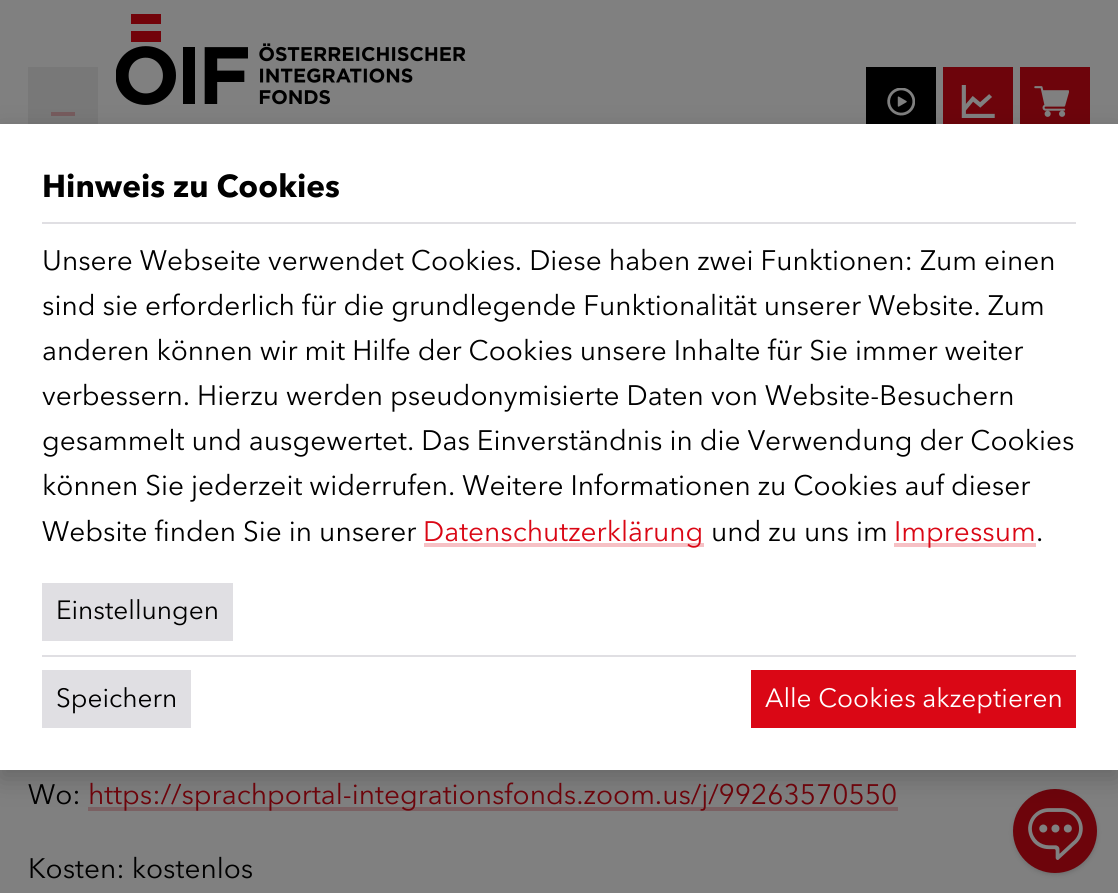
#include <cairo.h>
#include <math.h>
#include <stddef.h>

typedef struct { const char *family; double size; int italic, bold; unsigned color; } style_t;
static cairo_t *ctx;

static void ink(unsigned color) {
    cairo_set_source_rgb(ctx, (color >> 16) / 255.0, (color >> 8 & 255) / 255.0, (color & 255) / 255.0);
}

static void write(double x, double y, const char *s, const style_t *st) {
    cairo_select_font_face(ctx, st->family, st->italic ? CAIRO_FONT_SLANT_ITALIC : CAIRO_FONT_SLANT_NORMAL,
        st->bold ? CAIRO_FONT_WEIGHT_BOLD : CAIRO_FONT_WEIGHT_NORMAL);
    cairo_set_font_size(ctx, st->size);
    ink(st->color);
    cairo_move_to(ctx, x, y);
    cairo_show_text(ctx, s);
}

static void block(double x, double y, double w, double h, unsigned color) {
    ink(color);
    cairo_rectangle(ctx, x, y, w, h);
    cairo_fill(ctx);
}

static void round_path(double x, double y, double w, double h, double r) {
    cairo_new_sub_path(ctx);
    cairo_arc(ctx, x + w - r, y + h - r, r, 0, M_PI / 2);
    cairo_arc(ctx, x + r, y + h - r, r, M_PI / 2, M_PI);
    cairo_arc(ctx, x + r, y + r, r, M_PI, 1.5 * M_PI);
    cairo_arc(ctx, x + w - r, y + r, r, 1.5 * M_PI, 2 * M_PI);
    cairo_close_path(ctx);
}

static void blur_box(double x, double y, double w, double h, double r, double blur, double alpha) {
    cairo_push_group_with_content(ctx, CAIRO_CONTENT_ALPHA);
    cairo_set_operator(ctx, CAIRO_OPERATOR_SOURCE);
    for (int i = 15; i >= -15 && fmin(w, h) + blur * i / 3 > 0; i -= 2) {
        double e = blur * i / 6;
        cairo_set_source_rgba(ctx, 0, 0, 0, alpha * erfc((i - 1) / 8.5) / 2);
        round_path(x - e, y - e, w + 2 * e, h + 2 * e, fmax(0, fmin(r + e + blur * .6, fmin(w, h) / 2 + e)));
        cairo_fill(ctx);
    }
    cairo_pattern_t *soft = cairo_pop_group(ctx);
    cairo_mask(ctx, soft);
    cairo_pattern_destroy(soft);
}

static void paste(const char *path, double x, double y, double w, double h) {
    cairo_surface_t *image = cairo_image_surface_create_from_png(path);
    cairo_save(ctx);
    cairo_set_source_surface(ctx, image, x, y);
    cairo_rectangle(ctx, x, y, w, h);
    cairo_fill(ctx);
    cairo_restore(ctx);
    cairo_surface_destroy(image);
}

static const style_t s1 = {"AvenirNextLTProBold", 31.5, 0, 1, 0x000000};
static const style_t s2 = {"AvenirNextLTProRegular", 28, 0, 0, 0x000000};
static const style_t s3 = {"AvenirNextLTProRegular", 28, 0, 0, 0xda0715};
static const style_t s4 = {"AvenirNextLTProRegular", 26.25, 0, 0, 0x000000};
static const style_t s5 = {"AvenirNextLTProRegular", 26.25, 0, 0, 0xffffff};
static const style_t s6 = {"AvenirNextLTProRegular", 28, 0, 0, 0x6d040b};

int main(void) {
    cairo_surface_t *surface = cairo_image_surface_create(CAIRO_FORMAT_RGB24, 1118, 893);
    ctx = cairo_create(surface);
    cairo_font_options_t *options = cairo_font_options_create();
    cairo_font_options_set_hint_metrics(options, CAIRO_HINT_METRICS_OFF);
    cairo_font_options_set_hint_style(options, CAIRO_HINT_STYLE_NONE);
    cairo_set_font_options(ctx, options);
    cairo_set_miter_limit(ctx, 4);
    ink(0x808080);
    cairo_paint(ctx);
    block(28, 67, 70, 57, 0x787878);
    block(51, 112, 24, 4, 0x765b5d);
    paste("pic1.png", 116, 14, 350, 91);
    block(866, 67, 70, 57, 0x000000);
    paste("pic2.png", 887, 88, 28, 28);
    block(943, 67, 70, 57, 0x6d040b);
    paste("pic3.png", 961, 85, 34, 33);
    block(1020, 67, 70, 57, 0x6d040b);
    paste("pic4.png", 1034, 86, 35, 31);
    block(88, 807, 810, 4, 0x7b6163);
    ink(0x000000);
    blur_box(1015, 793, 81, 80, 40, 2, 0.1);
    blur_box(1013, 791, 84, 84, 42, 2.5, 0.1);
    ink(0x6d040b);
    cairo_arc(ctx, 1055, 831, 42, 0, 2 * M_PI);
    cairo_fill(ctx);
    paste("pic5.png", 1028, 808, 55, 52);
    ink(0x000000);
    blur_box(0, 133, 1118, 646, 0, 13, 0.2);
    block(0, 124, 1118, 646, 0xffffff);
    block(42, 222, 1034, 2, 0xe0dfe3);
    write(42, 197, "Hinweis zu Cookies", &s1);
    write(42, 270, "Unsere Webseite verwendet Cookies. Diese haben zwei Funktionen: Zum einen", &s2);
    write(42, 315, "sind sie erforderlich für die grundlegende Funktionalität unserer Website. Zum", &s2);
    write(42, 360, "anderen können wir mit Hilfe der Cookies unsere Inhalte für Sie immer weiter", &s2);
    write(42, 405, "verbessern. Hierzu werden pseudonymisierte Daten von Website-Besuchern", &s2);
    write(42, 450, "gesammelt und ausgewertet. Das Einverständnis in die Verwendung der Cookies", &s2);
    write(42, 495, "können Sie jederzeit widerrufen. Weitere Informationen zu Cookies auf dieser", &s2);
    write(42, 541, "Website finden Sie in unserer", &s2);
    block(424, 543, 280, 4, 0xf6c1c5);
    write(423, 541, "Datenschutzerklärung", &s3);
    write(711, 541, "und zu uns im", &s2);
    block(894, 543, 142, 4, 0xf6c1c5);
    write(894, 541, "Impressum", &s3);
    write(1036, 541, ".", &s2);
    block(42, 583, 191, 58, 0xe0dfe3);
    write(56, 619, "Einstellungen", &s4);
    block(42, 655, 1034, 2, 0xe0dfe3);
    block(42, 670, 149, 58, 0xe0dfe3);
    write(56, 707, "Speichern", &s4);
    block(751, 670, 325, 58, 0xda0715);
    write(765, 707, "Alle Cookies akzeptieren", &s5);
    write(28, 804, "Wo:", &s2);
    write(88, 804, "https://sprachportal-integrationsfonds.zoom.us/j/99263570550", &s6);
    write(28, 878, "Kosten: kostenlos", &s2);
    cairo_surface_write_to_png(surface, "screenshot.png");
    cairo_font_options_destroy(options);
    cairo_destroy(ctx);
    cairo_surface_destroy(surface);
    return 0;
}
